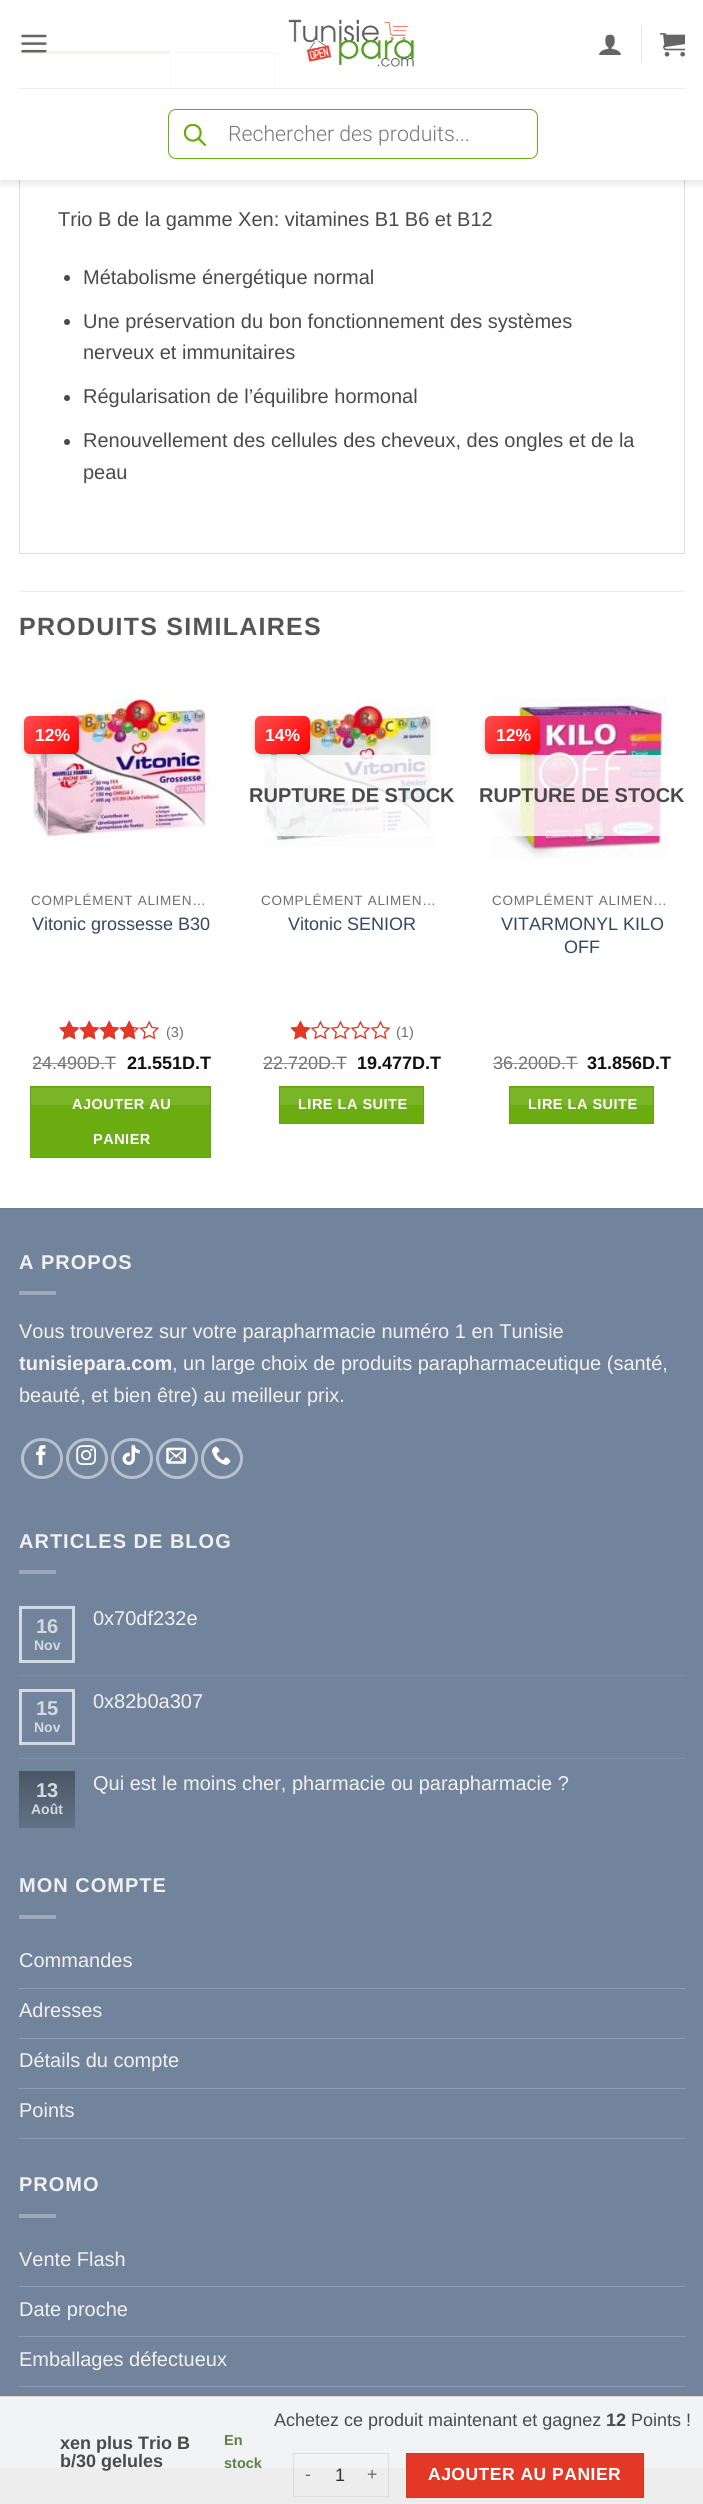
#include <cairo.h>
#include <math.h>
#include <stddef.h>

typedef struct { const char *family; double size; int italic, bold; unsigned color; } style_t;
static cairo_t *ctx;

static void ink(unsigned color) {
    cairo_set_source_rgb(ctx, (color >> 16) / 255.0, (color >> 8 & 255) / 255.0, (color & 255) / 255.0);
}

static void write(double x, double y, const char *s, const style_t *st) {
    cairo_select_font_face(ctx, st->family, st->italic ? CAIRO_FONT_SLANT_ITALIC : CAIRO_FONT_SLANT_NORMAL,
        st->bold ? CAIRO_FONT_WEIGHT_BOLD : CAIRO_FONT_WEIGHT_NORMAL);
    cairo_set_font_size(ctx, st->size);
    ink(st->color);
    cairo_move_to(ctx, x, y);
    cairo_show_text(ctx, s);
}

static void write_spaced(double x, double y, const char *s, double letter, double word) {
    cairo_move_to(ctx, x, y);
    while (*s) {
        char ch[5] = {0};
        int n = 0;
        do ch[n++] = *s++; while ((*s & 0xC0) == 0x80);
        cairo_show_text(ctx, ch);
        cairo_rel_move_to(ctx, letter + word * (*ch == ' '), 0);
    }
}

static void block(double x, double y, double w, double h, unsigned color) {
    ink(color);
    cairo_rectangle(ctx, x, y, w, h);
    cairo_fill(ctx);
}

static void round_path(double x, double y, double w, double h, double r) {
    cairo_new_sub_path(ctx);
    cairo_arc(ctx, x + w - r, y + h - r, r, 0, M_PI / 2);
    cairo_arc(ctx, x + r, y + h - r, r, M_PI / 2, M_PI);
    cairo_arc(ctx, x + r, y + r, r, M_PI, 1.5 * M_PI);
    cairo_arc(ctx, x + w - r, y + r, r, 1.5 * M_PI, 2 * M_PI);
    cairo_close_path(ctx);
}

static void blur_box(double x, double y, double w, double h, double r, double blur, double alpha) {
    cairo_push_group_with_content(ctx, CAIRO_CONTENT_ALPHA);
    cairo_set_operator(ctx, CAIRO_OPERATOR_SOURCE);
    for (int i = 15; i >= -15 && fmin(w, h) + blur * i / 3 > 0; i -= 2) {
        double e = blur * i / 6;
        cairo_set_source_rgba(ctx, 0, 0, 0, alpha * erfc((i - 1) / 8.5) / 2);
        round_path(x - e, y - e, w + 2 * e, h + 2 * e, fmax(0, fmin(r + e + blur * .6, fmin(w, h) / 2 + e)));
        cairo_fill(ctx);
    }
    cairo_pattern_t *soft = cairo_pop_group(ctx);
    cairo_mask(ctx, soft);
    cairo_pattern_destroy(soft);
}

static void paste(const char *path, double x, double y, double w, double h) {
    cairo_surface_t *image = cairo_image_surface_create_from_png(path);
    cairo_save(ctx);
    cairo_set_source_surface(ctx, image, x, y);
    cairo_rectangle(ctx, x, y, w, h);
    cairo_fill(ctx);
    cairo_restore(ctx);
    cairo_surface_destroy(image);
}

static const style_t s1 = {"Roboto Light", 21.25, 0, 0, 0x777777};
static const style_t s2 = {"Liberation Sans", 20, 0, 0, 0x4a4a4a};
static const style_t s3 = {"Liberation Sans", 17.5, 0, 1, 0xffffff};
static const style_t s4 = {"Liberation Sans", 18, 0, 0, 0x334862};
static const style_t s5 = {"Liberation Sans", 14.5, 0, 0, 0x6e6e6e};
static const style_t s6 = {"Liberation Sans", 18, 0, 0, 0x6e6e6e};
static const style_t s7 = {"Liberation Sans", 18, 0, 1, 0x111111};
static const style_t s8 = {"Liberation Sans", 20, 0, 1, 0x4a4a4a};
static const style_t s9 = {"Liberation Sans", 20, 0, 0, 0xf1f1f1};
static const style_t s10 = {"Liberation Sans", 20, 0, 1, 0xf1f1f1};
static const style_t s11 = {"Liberation Sans", 20, 0, 1, 0xd4dae1};
static const style_t s12 = {"Liberation Sans", 14, 0, 1, 0xd4dae1};
static const style_t s13 = {"Liberation Sans", 18, 0, 1, 0x4a4a4a};
static const style_t s14 = {"Liberation Sans", 14.5, 0, 1, 0x627d47};
static const style_t s15 = {"Liberation Sans", 18, 0, 0, 0x4a4a4a};
static const style_t s16 = {"Liberation Sans", 18, 0, 0, 0x333333};

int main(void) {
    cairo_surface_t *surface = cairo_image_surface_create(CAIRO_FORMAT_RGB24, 703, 2504);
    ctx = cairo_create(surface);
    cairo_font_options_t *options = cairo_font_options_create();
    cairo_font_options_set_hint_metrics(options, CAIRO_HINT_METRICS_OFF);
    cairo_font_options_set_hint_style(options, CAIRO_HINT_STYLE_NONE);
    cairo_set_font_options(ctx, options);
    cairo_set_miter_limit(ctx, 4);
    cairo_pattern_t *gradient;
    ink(0xffffff);
    cairo_paint(ctx);
    block(19, 13, 666, 1, 0xececec);
    ink(0x6bac10);
    cairo_new_path(ctx);
    cairo_move_to(ctx, 19, 51);
    cairo_line_to(ctx, 171, 51);
    cairo_line_to(ctx, 170, 54);
    cairo_line_to(ctx, 20, 54);
    cairo_close_path(ctx);
    cairo_fill(ctx);
    cairo_rectangle(ctx, 19.5, 103.5, 665, 450);
    ink(0xdddddd);
    cairo_set_line_width(ctx, 1);
    cairo_stroke(ctx);
    cairo_new_path(ctx);
    cairo_move_to(ctx, 171, 51);
    cairo_line_to(ctx, 171, 104);
    cairo_line_to(ctx, 170, 104);
    cairo_line_to(ctx, 170, 54);
    cairo_close_path(ctx);
    cairo_fill(ctx);
    cairo_new_path(ctx);
    cairo_move_to(ctx, 19, 104);
    cairo_line_to(ctx, 19, 51);
    cairo_line_to(ctx, 20, 54);
    cairo_line_to(ctx, 20, 104);
    cairo_close_path(ctx);
    cairo_fill(ctx);
    cairo_set_source_rgba(ctx, 0, 0, 0, 0.04);
    cairo_rectangle(ctx, 176, 54, 103, 34);
    cairo_fill(ctx);
    block(175, 51, 105, 3, 0xdddddd);
    block(279, 51, 1, 37, 0xdddddd);
    block(175, 51, 1, 37, 0xdddddd);
    cairo_save(ctx);
    cairo_rectangle(ctx, 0, 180, 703, 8);
    cairo_clip(ctx);
    ink(0x000000);
    blur_box(1, 1, 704, 180, 0, 6, 0.15);
    cairo_restore(ctx);
    cairo_set_source_rgba(ctx, 1, 1, 1, 0.9);
    cairo_rectangle(ctx, 19, 13, 666, 75);
    cairo_fill(ctx);
    paste("pic1.png", 21, 34, 26, 19);
    paste("pic2.png", 288, 19, 126, 48);
    paste("pic3.png", 599, 34, 22, 21);
    block(641, 25, 1, 38, 0xe6e6e6);
    paste("pic4.png", 660, 33, 25, 24);
    block(19, 88, 666, 92, 0xffffff);
    block(19, 88, 666, 1, 0xededed);
    round_path(168.5, 109.5, 369, 49, 7.5);
    ink(0x6bac0e);
    cairo_stroke(ctx);
    paste("pic5.png", 184, 124, 22, 22);
    write(228, 141, "Rechercher des produits...", &s1);
    write(58, 226, "Trio B de la gamme Xen: vitamines B1 B6 et B12", &s2);
    cairo_new_path(ctx);
    cairo_arc(ctx, 67, 278, 3, 0, 2 * M_PI);
    cairo_fill(ctx);
    write(83, 284, "Métabolisme énergétique normal", &s2);
    cairo_new_path(ctx);
    cairo_arc(ctx, 67, 322, 3, 0, 2 * M_PI);
    cairo_fill(ctx);
    write(83, 328, "Une préservation du bon fonctionnement des systèmes", &s2);
    write(83, 359, "nerveux et immunitaires", &s2);
    cairo_new_path(ctx);
    cairo_arc(ctx, 67, 398, 3, 0, 2 * M_PI);
    cairo_fill(ctx);
    write(83, 403, "Régularisation de l’équilibre hormonal", &s2);
    cairo_new_path(ctx);
    cairo_arc(ctx, 67, 442, 3, 0, 2 * M_PI);
    cairo_fill(ctx);
    write(83, 447, "Renouvellement des cellules des cheveux, des ongles et de la", &s2);
    write(83, 479, "peau", &s2);
    block(19, 591, 666, 1, 0xececec);
    cairo_select_font_face(ctx, "Liberation Sans", CAIRO_FONT_SLANT_NORMAL, CAIRO_FONT_WEIGHT_BOLD);
    cairo_set_font_size(ctx, 25);
    ink(0x555555);
    write_spaced(19, 635, "PRODUITS SIMILAIRES", 1.25, 0);
    paste("pic6.png", 31, 698, 180, 142);
    ink(0x000000);
    blur_box(24, 719, 55, 37, 6, 3, 0.2);
    gradient = cairo_pattern_create_linear(29, 712, 75, 758);
    cairo_pattern_add_color_stop_rgba(gradient, 0, 1, 0.302, 0.302, 1);
    cairo_pattern_add_color_stop_rgba(gradient, 1, 1, 0, 0, 1);
    cairo_set_source(ctx, gradient);
    cairo_pattern_destroy(gradient);
    round_path(24, 716, 55, 38, 6);
    cairo_fill(ctx);
    write(35, 741, "12%", &s3);
    cairo_select_font_face(ctx, "Liberation Sans", CAIRO_FONT_SLANT_NORMAL, CAIRO_FONT_WEIGHT_NORMAL);
    cairo_set_font_size(ctx, 13.5);
    ink(0x6e6e6e);
    write_spaced(31, 905, "COMPLÉMENT ALIMEN…", 0.7, 0);
    write(32, 930, "Vitonic grossesse B30", &s4);
    paste("pic7.png", 59, 1020, 101, 20);
    paste("pic8.png", 59, 1020, 75, 20);
    write(166, 1037, "(3)", &s5);
    write(32, 1069, "24.490D.T", &s6);
    block(33, 1063, 83, 1, 0x929292);
    write(127, 1069, "21.551D.T", &s7);
    ink(0x6bac10);
    cairo_rectangle(ctx, 30.5, 1086.5, 180, 71);
    cairo_fill_preserve(ctx);
    ink(0x66a30f);
    cairo_stroke(ctx);
    cairo_set_source_rgba(ctx, 1, 1, 1, 0.1);
    cairo_rectangle(ctx, 31, 1088, 179, 17);
    cairo_fill(ctx);
    cairo_set_font_size(ctx, 14.5);
    ink(0xffffff);
    write_spaced(72, 1109, "AJOUTER AU", 0.5, 0);
    write_spaced(93, 1144, "PANIER", 0.5, 0);
    paste("pic9.png", 262, 699, 174, 147);
    cairo_set_source_rgba(ctx, 1, 1, 1, 0.81);
    cairo_rectangle(ctx, 262, 755, 174, 81);
    cairo_fill(ctx);
    ink(0x000000);
    blur_box(255, 719, 55, 37, 6, 3, 0.2);
    gradient = cairo_pattern_create_linear(260, 712, 306, 758);
    cairo_pattern_add_color_stop_rgba(gradient, 0, 1, 0.302, 0.302, 1);
    cairo_pattern_add_color_stop_rgba(gradient, 1, 1, 0, 0, 1);
    cairo_set_source(ctx, gradient);
    cairo_pattern_destroy(gradient);
    round_path(255, 716, 55, 38, 6);
    cairo_fill(ctx);
    write(265, 741, "14%", &s3);
    write(249, 802, "RUPTURE DE STOCK", &s8);
    cairo_select_font_face(ctx, "Liberation Sans", CAIRO_FONT_SLANT_NORMAL, CAIRO_FONT_WEIGHT_NORMAL);
    cairo_set_font_size(ctx, 13.5);
    ink(0x6e6e6e);
    write_spaced(261, 905, "COMPLÉMENT ALIMEN…", 0.7, 0);
    write(288, 930, "Vitonic SENIOR", &s4);
    paste("pic10.png", 290, 1020, 101, 20);
    paste("pic11.png", 290, 1020, 20, 20);
    write(396, 1037, "(1)", &s5);
    write(263, 1069, "22.720D.T", &s6);
    block(263, 1063, 83, 1, 0x929292);
    write(357, 1069, "19.477D.T", &s7);
    ink(0x6bac10);
    cairo_rectangle(ctx, 279.5, 1086.5, 144, 37);
    cairo_fill_preserve(ctx);
    ink(0x66a30f);
    cairo_stroke(ctx);
    cairo_set_source_rgba(ctx, 1, 1, 1, 0.1);
    cairo_rectangle(ctx, 280, 1088, 143, 17);
    cairo_fill(ctx);
    cairo_set_font_size(ctx, 14.5);
    ink(0xffffff);
    write_spaced(298, 1109, "LIRE LA SUITE", 0.5, 0);
    paste("pic12.png", 491, 698, 176, 161);
    cairo_set_source_rgba(ctx, 1, 1, 1, 0.81);
    cairo_rectangle(ctx, 491, 755, 176, 81);
    cairo_fill(ctx);
    ink(0x000000);
    blur_box(485, 719, 55, 37, 6, 3, 0.2);
    gradient = cairo_pattern_create_linear(490, 712, 536, 758);
    cairo_pattern_add_color_stop_rgba(gradient, 0, 1, 0.302, 0.302, 1);
    cairo_pattern_add_color_stop_rgba(gradient, 1, 1, 0, 0, 1);
    cairo_set_source(ctx, gradient);
    cairo_pattern_destroy(gradient);
    round_path(485, 716, 55, 38, 6);
    cairo_fill(ctx);
    write(496, 741, "12%", &s3);
    write(479, 802, "RUPTURE DE STOCK", &s8);
    cairo_select_font_face(ctx, "Liberation Sans", CAIRO_FONT_SLANT_NORMAL, CAIRO_FONT_WEIGHT_NORMAL);
    cairo_set_font_size(ctx, 13.5);
    ink(0x6e6e6e);
    write_spaced(492, 905, "COMPLÉMENT ALIMEN…", 0.7, 0);
    write(501, 930, "VITARMONYL KILO", &s4);
    write(564, 953, "OFF", &s4);
    write(493, 1069, "36.200D.T", &s6);
    block(493, 1063, 85, 1, 0x929292);
    write(587, 1069, "31.856D.T", &s7);
    ink(0x6bac10);
    cairo_rectangle(ctx, 509.5, 1086.5, 144, 37);
    cairo_fill_preserve(ctx);
    ink(0x66a30f);
    cairo_stroke(ctx);
    cairo_set_source_rgba(ctx, 1, 1, 1, 0.1);
    cairo_rectangle(ctx, 510, 1088, 143, 17);
    cairo_fill(ctx);
    cairo_set_font_size(ctx, 14.5);
    ink(0xffffff);
    write_spaced(528, 1109, "LIRE LA SUITE", 0.5, 0);
    block(0, 1209, 703, 1187, 0x71849c);
    block(0, 2397, 703, 71, 0xf1f3f5);
    block(0, 1208, 703, 1, 0x6b7d94);
    cairo_set_font_size(ctx, 20);
    ink(0xf1f1f1);
    write_spaced(19, 1269, "A PROPOS", 1, 0);
    block(19, 1291, 37, 4, 0x9ca9ba);
    write(19, 1338, "Vous trouverez sur votre parapharmacie numéro 1 en Tunisie", &s9);
    write(19, 1370, "tunisiepara.com", &s10);
    write(172, 1370, ", un large choix de produits parapharmaceutique (santé,", &s9);
    write(19, 1402, "beauté, et bien être) au meilleur prix.", &s9);
    round_path(22.5, 1439.5, 39, 38, 19);
    ink(0xb8c2ce);
    cairo_set_line_width(ctx, 3);
    cairo_stroke(ctx);
    paste("pic13.png", 36, 1445, 10, 20);
    round_path(67.5, 1439.5, 39, 38, 19);
    cairo_stroke(ctx);
    paste("pic14.png", 76, 1445, 20, 20);
    round_path(112.5, 1439.5, 39, 38, 19);
    cairo_stroke(ctx);
    paste("pic15.png", 122, 1445, 18, 20);
    round_path(157.5, 1439.5, 39, 38, 19);
    cairo_stroke(ctx);
    paste("pic16.png", 166, 1447, 21, 17);
    round_path(202.5, 1439.5, 39, 38, 19);
    cairo_stroke(ctx);
    paste("pic17.png", 211, 1446, 20, 19);
    cairo_select_font_face(ctx, "Liberation Sans", CAIRO_FONT_SLANT_NORMAL, CAIRO_FONT_WEIGHT_BOLD);
    ink(0xf1f1f1);
    write_spaced(19, 1548, "ARTICLES DE BLOG", 1, 0);
    block(19, 1570, 37, 4, 0x9ca9ba);
    cairo_rectangle(ctx, 20.5, 1607.5, 53, 54);
    ink(0xd4dae1);
    cairo_stroke(ctx);
    write(36, 1633, "16", &s11);
    write(34, 1650, "Nov", &s12);
    write(93, 1625, "0x70df232e", &s9);
    block(19, 1675, 666, 1, 0x7c8ea4);
    cairo_rectangle(ctx, 20.5, 1690.5, 53, 53);
    ink(0xd4dae1);
    cairo_stroke(ctx);
    write(36, 1715, "15", &s11);
    write(34, 1732, "Nov", &s12);
    write(93, 1708, "0x82b0a307", &s9);
    block(19, 1758, 666, 1, 0x7c8ea4);
    gradient = cairo_pattern_create_linear(47, 1771, 47, 1828);
    cairo_pattern_add_color_stop_rgba(gradient, 0, 0.29, 0.337, 0.4, 1);
    cairo_pattern_add_color_stop_rgba(gradient, 1, 0.38, 0.447, 0.525, 1);
    cairo_set_source(ctx, gradient);
    cairo_pattern_destroy(gradient);
    cairo_rectangle(ctx, 19, 1771, 56, 57);
    cairo_fill(ctx);
    write(36, 1797, "13", &s11);
    write(31, 1814, "Août", &s12);
    write(93, 1790, "Qui est le moins cher, pharmacie ou parapharmacie ?", &s9);
    cairo_select_font_face(ctx, "Liberation Sans", CAIRO_FONT_SLANT_NORMAL, CAIRO_FONT_WEIGHT_BOLD);
    write_spaced(19, 1892, "MON COMPTE", 1, 0);
    block(19, 1915, 37, 4, 0x9ca9ba);
    block(19, 1988, 666, 1, 0x8d9db0);
    write(19, 1967, "Commandes", &s9);
    block(19, 2038, 666, 1, 0x8d9db0);
    write(19, 2017, "Adresses", &s9);
    block(19, 2088, 666, 1, 0x8d9db0);
    write(19, 2067, "Détails du compte", &s9);
    block(19, 2138, 666, 1, 0x8d9db0);
    write(19, 2117, "Points", &s9);
    cairo_select_font_face(ctx, "Liberation Sans", CAIRO_FONT_SLANT_NORMAL, CAIRO_FONT_WEIGHT_BOLD);
    write_spaced(19, 2191, "PROMO", 1, 0);
    block(19, 2214, 37, 4, 0x9ca9ba);
    block(19, 2286, 666, 1, 0x8d9db0);
    write(19, 2266, "Vente Flash", &s9);
    block(19, 2336, 666, 1, 0x8d9db0);
    write(19, 2316, "Date proche", &s9);
    block(19, 2386, 666, 1, 0x8d9db0);
    write(19, 2366, "Emballages défectueux", &s9);
    block(0, 2468, 703, 36, 0xededed);
    block(0, 2396, 703, 1, 0xdddddd);
    write(60, 2449, "xen plus Trio B", &s13);
    write(60, 2467, "b/30 gelules", &s13);
    write(224, 2445, "En", &s14);
    write(224, 2468, "stock", &s14);
    write(274, 2426, "Achetez ce produit maintenant et gagnez", &s15);
    write(606, 2426, "12", &s13);
    write(631, 2426, "Points !", &s15);
    block(293, 2453, 96, 1, 0xdddddd);
    block(293, 2496, 66, 1, 0xdddddd);
    block(293, 2453, 1, 45, 0xdddddd);
    cairo_set_font_size(ctx, 17.5);
    ink(0x666666);
    write_spaced(305, 2480, "-", 0.5, 0);
    write(335, 2481, "1", &s16);
    block(388, 2453, 1, 45, 0xdddddd);
    block(359, 2496, 30, 1, 0xdddddd);
    cairo_set_font_size(ctx, 17.5);
    ink(0x666666);
    write_spaced(367, 2480, "+", 0.5, 0);
    ink(0xe43826);
    cairo_rectangle(ctx, 406.5, 2453.5, 237, 44);
    cairo_fill_preserve(ctx);
    ink(0xd93524);
    cairo_set_line_width(ctx, 1);
    cairo_stroke(ctx);
    cairo_select_font_face(ctx, "Liberation Sans", CAIRO_FONT_SLANT_NORMAL, CAIRO_FONT_WEIGHT_BOLD);
    ink(0xffffff);
    write_spaced(428, 2480, "AJOUTER AU PANIER", 0.5, 0);
    cairo_surface_write_to_png(surface, "screenshot.png");
    cairo_font_options_destroy(options);
    cairo_destroy(ctx);
    cairo_surface_destroy(surface);
    return 0;
}
